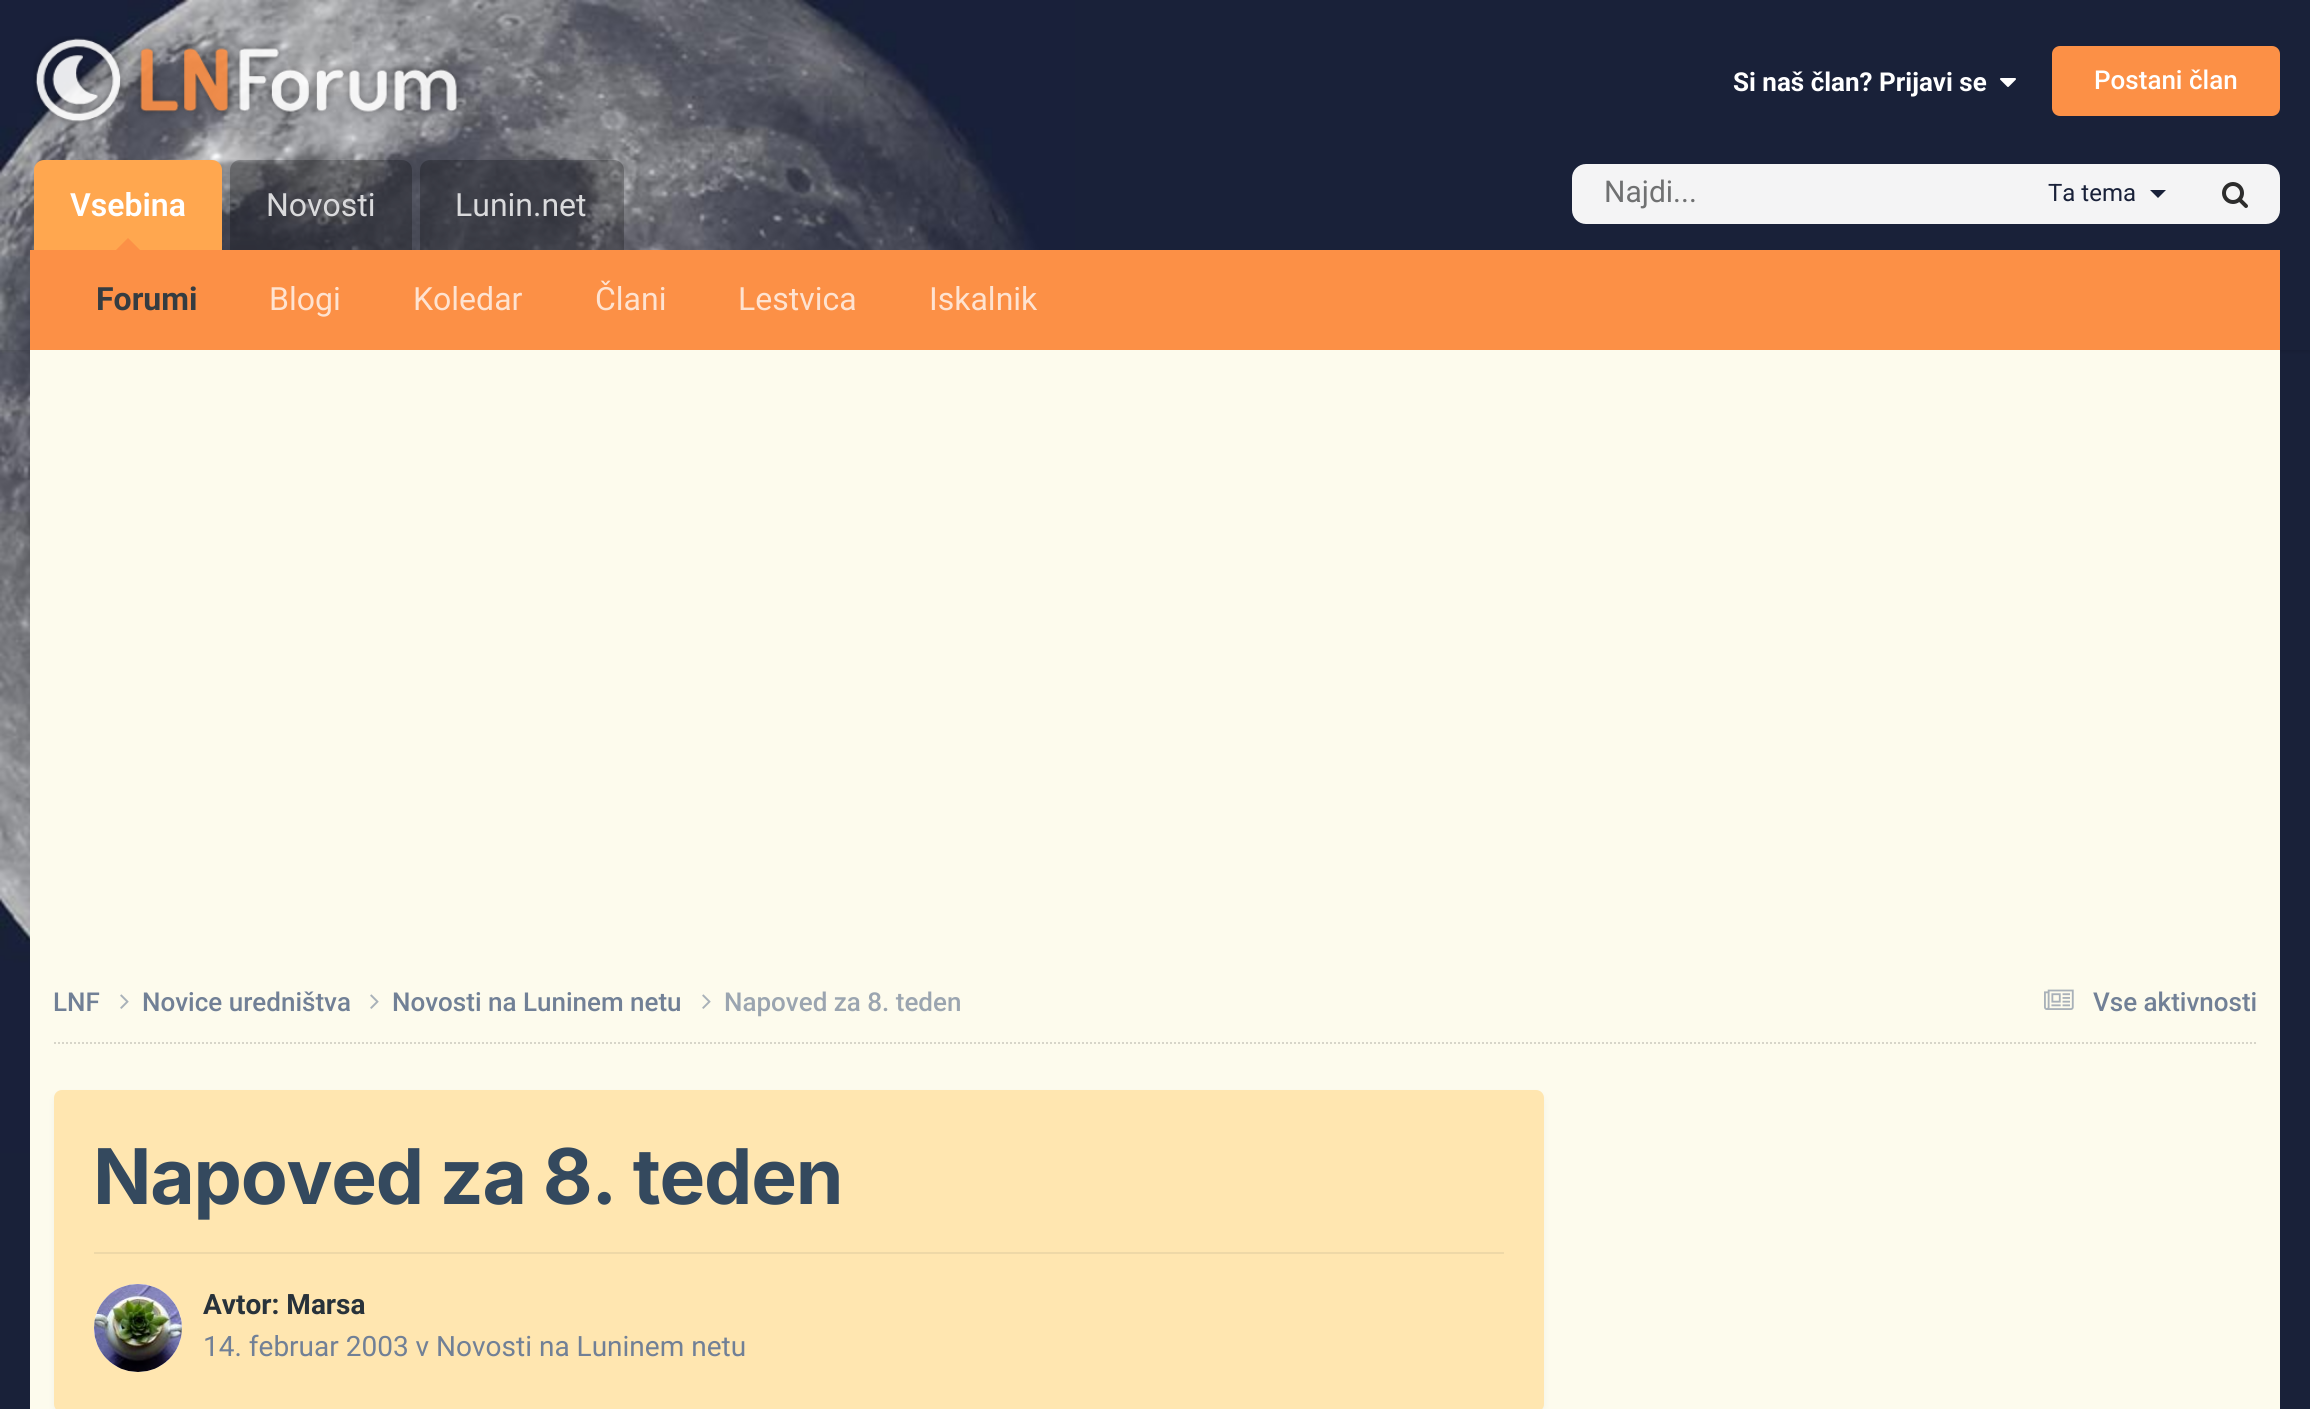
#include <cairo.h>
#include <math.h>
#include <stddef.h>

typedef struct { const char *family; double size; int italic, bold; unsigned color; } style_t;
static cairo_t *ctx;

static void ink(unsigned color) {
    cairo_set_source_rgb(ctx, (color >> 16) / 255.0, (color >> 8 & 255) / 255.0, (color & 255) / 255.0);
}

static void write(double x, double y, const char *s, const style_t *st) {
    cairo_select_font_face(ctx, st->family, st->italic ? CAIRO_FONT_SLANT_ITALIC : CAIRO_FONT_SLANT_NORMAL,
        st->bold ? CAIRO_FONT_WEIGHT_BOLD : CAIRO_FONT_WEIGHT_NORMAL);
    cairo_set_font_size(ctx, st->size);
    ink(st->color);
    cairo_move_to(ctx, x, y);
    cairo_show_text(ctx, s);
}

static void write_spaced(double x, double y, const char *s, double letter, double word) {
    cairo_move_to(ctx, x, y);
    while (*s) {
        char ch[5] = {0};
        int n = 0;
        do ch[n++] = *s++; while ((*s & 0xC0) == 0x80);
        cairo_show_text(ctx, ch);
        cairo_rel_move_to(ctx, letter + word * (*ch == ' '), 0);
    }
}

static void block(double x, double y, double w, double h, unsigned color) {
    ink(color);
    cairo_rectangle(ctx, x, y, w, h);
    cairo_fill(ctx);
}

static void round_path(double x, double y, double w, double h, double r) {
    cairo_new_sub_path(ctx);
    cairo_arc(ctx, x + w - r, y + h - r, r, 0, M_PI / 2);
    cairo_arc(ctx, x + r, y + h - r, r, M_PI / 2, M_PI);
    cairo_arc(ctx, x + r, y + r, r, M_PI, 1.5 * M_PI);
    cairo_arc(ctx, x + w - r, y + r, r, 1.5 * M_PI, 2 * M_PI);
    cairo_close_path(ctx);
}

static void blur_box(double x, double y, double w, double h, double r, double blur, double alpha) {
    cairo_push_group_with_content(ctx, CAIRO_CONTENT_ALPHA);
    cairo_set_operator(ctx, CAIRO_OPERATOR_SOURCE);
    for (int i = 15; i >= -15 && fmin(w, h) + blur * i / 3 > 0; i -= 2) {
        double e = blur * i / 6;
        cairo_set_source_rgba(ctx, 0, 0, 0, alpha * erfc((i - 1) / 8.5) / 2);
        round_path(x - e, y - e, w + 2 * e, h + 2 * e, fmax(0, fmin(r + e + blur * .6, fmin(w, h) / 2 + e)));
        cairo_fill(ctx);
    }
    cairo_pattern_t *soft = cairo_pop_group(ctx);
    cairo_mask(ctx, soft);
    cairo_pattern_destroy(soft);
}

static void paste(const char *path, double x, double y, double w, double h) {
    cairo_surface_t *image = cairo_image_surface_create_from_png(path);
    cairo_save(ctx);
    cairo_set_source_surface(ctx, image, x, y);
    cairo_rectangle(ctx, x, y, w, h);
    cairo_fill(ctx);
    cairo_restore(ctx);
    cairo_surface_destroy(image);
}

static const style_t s1 = {"Roboto", 26, 0, 1, 0xffffff};
static const style_t s2 = {"Roboto Medium", 26, 0, 0, 0xffffff};
static const style_t s3 = {"Roboto SemiBold", 32, 0, 0, 0xffffff};
static const style_t s4 = {"Roboto", 32, 0, 1, 0x353c41};
static const style_t s5 = {"Roboto", 32, 0, 0, 0xfee3d1};
static const style_t s6 = {"Roboto", 32, 0, 0, 0xdadadc};
static const style_t s7 = {"Roboto", 30, 0, 0, 0x707172};
static const style_t s8 = {"Roboto", 24, 0, 0, 0x192139};
static const style_t s9 = {"Roboto Medium", 26, 0, 0, 0x718096};
static const style_t s10 = {"Roboto Medium", 26, 0, 0, 0x9ba5b0};
static const style_t s11 = {"Roboto", 28, 0, 1, 0x28323a};
static const style_t s12 = {"Roboto", 28, 0, 0, 0x718096};

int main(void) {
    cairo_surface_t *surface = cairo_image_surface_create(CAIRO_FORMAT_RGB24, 2310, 1409);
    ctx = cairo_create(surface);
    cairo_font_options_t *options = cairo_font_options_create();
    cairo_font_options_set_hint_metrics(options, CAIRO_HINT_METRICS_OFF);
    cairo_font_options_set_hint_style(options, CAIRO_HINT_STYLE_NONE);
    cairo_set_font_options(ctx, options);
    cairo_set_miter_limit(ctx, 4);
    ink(0x192139);
    cairo_paint(ctx);
    paste("pic1.png", 0, 0, 1075, 1153);
    paste("pic2.png", 33, 36, 430, 91);
    write(1733, 91, "Si naš član? Prijavi se", &s1);
    paste("pic3.png", 2000, 78, 16, 9);
    ink(0xfc9046);
    round_path(2052, 46, 228, 70, 8);
    cairo_fill(ctx);
    write(2094, 89, "Postani član", &s2);
    cairo_save(ctx);
    cairo_rectangle(ctx, 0, 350, 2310, 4);
    cairo_clip(ctx);
    ink(0x000000);
    blur_box(0, 252, 2310, 100, 0, 2, 0.1);
    cairo_restore(ctx);
    ink(0xffa74f);
    cairo_new_path(ctx);
    cairo_move_to(ctx, 44, 160);
    cairo_line_to(ctx, 212, 160);
    cairo_curve_to(ctx, 217.5, 160, 222, 164.5, 222, 170);
    cairo_line_to(ctx, 222, 250);
    cairo_line_to(ctx, 34, 250);
    cairo_line_to(ctx, 34, 170);
    cairo_curve_to(ctx, 34, 164.5, 38.5, 160, 44, 160);
    cairo_close_path(ctx);
    cairo_fill(ctx);
    write(70, 216, "Vsebina", &s3);
    ink(0xfc9046);
    cairo_new_path(ctx);
    cairo_move_to(ctx, 140, 250);
    cairo_line_to(ctx, 116, 250);
    cairo_line_to(ctx, 128, 238);
    cairo_close_path(ctx);
    cairo_fill(ctx);
    block(30, 250, 2250, 100, 0xfc9046);
    write(96, 310, "Forumi", &s4);
    write(269, 310, "Blogi", &s5);
    write(413, 310, "Koledar", &s5);
    write(595, 310, "Člani", &s5);
    write(738, 310, "Lestvica", &s5);
    write(929, 310, "Iskalnik", &s5);
    cairo_set_source_rgba(ctx, 0, 0, 0, 0.25);
    cairo_new_path(ctx);
    cairo_move_to(ctx, 240, 160);
    cairo_line_to(ctx, 402, 160);
    cairo_curve_to(ctx, 407.5, 160, 412, 164.5, 412, 170);
    cairo_line_to(ctx, 412, 250);
    cairo_line_to(ctx, 230, 250);
    cairo_line_to(ctx, 230, 170);
    cairo_curve_to(ctx, 230, 164.5, 234.5, 160, 240, 160);
    cairo_close_path(ctx);
    cairo_fill(ctx);
    write(266, 216, "Novosti", &s6);
    cairo_set_source_rgba(ctx, 0, 0, 0, 0.25);
    cairo_new_path(ctx);
    cairo_move_to(ctx, 430, 160);
    cairo_line_to(ctx, 614, 160);
    cairo_curve_to(ctx, 619.5, 160, 624, 164.5, 624, 170);
    cairo_line_to(ctx, 624, 250);
    cairo_line_to(ctx, 420, 250);
    cairo_line_to(ctx, 420, 170);
    cairo_curve_to(ctx, 420, 164.5, 424.5, 160, 430, 160);
    cairo_close_path(ctx);
    cairo_fill(ctx);
    write(455, 216, "Lunin.net", &s6);
    ink(0xf4f4f5);
    round_path(1572, 164, 708, 60, 14);
    cairo_fill(ctx);
    write(1604, 202, "Najdi...", &s7);
    write(2048, 201, "Ta tema", &s8);
    cairo_new_path(ctx);
    cairo_move_to(ctx, 2150, 190);
    cairo_line_to(ctx, 2166, 190);
    cairo_line_to(ctx, 2158, 198);
    cairo_close_path(ctx);
    cairo_fill(ctx);
    paste("pic4.png", 2222, 182, 26, 26);
    block(30, 350, 2250, 1059, 0xfdfbed);
    cairo_new_path(ctx);
    cairo_move_to(ctx, 54, 1043);
    cairo_line_to(ctx, 2256, 1043);
    ink(0xd7d5c9);
    cairo_set_dash(ctx, (double[]){2, 2}, 2, 0);
    cairo_stroke(ctx);
    write(53, 1011, "LNF", &s9);
    paste("pic5.png", 120, 994, 9, 15);
    write(142, 1011, "Novice uredništva", &s9);
    paste("pic5.png", 370, 994, 9, 15);
    write(392, 1011, "Novosti na Luninem netu", &s9);
    paste("pic5.png", 702, 994, 9, 15);
    write(724, 1011, "Napoved za 8. teden", &s10);
    paste("pic6.png", 2044, 989, 30, 21);
    write(2093, 1011, "Vse aktivnosti", &s9);
    ink(0x3d6594);
    blur_box(56, 1096, 1486, 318, 6, 4, 0.1);
    ink(0xffe6b0);
    round_path(54, 1090, 1490, 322, 8);
    cairo_fill(ctx);
    cairo_select_font_face(ctx, "Inter", CAIRO_FONT_SLANT_NORMAL, CAIRO_FONT_WEIGHT_BOLD);
    cairo_set_font_size(ctx, 76.75);
    ink(0x34495e);
    write_spaced(93, 1204, "Napoved za 8. teden", -1.25, 0);
    block(94, 1252, 1410, 2, 0xeed8a7);
    ink(0xffffff);
    cairo_new_path(ctx);
    cairo_arc(ctx, 138, 1328, 44, 0, 2 * M_PI);
    cairo_fill(ctx);
    paste("pic7.png", 94, 1284, 88, 88);
    write(203, 1314, "Avtor: Marsa", &s11);
    write(203, 1356, "14. februar 2003 v Novosti na Luninem netu", &s12);
    cairo_surface_write_to_png(surface, "screenshot.png");
    cairo_font_options_destroy(options);
    cairo_destroy(ctx);
    cairo_surface_destroy(surface);
    return 0;
}
